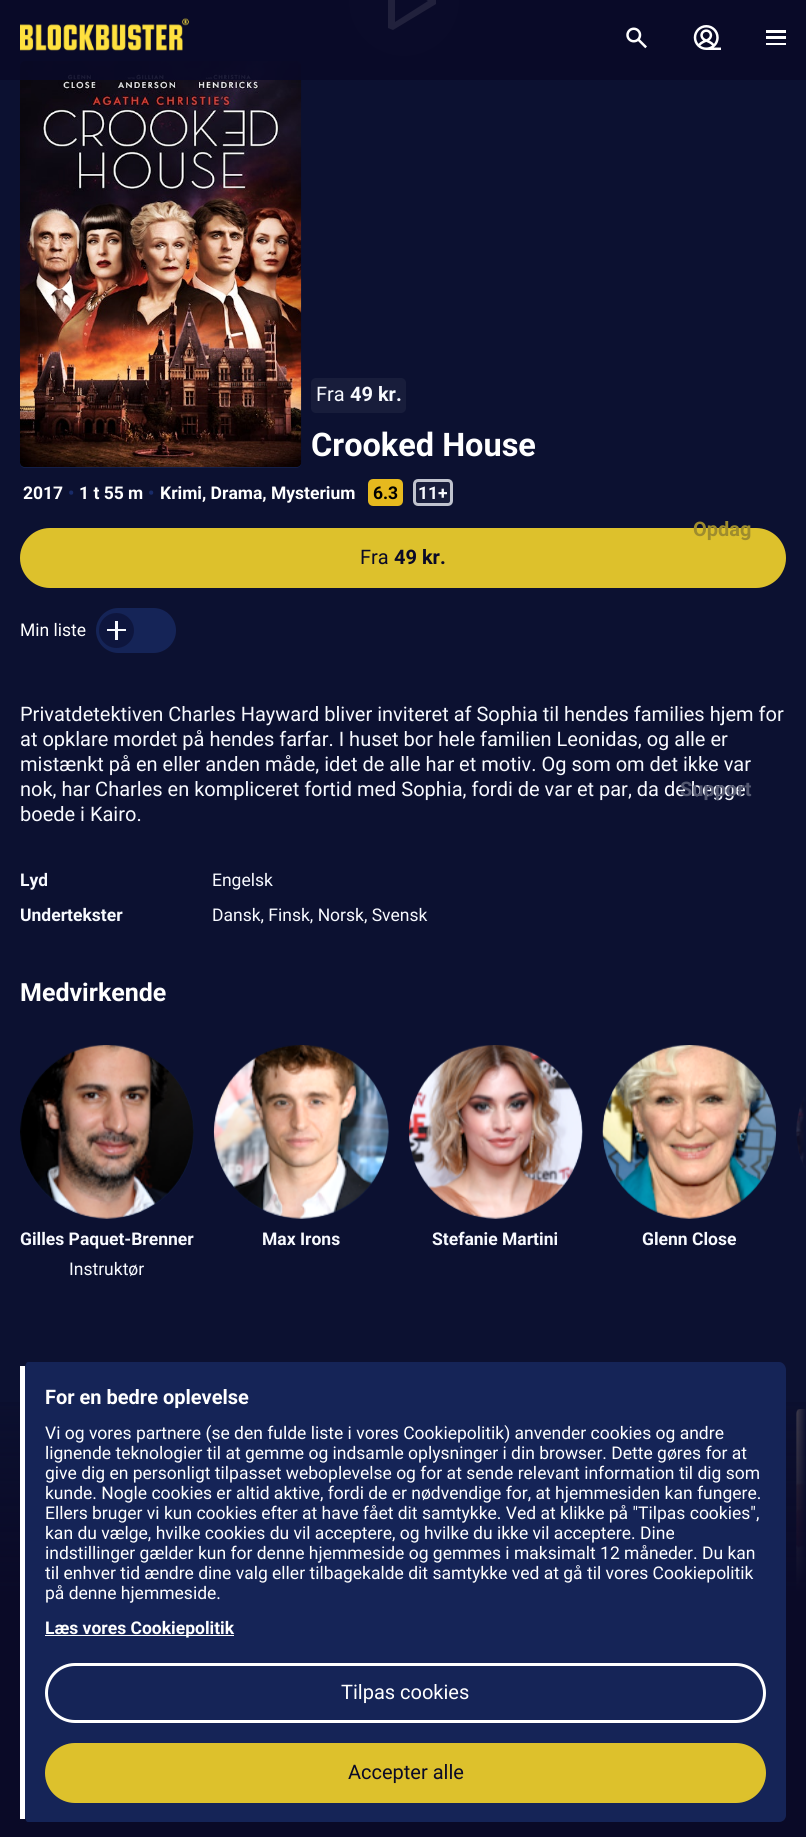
#include <cairo.h>
#include <math.h>
#include <stddef.h>

typedef struct { const char *family; double size; int italic, bold; unsigned color; } style_t;
static cairo_t *ctx;

static void ink(unsigned color) {
    cairo_set_source_rgb(ctx, (color >> 16) / 255.0, (color >> 8 & 255) / 255.0, (color & 255) / 255.0);
}

static void write(double x, double y, const char *s, const style_t *st) {
    cairo_select_font_face(ctx, st->family, st->italic ? CAIRO_FONT_SLANT_ITALIC : CAIRO_FONT_SLANT_NORMAL,
        st->bold ? CAIRO_FONT_WEIGHT_BOLD : CAIRO_FONT_WEIGHT_NORMAL);
    cairo_set_font_size(ctx, st->size);
    ink(st->color);
    cairo_move_to(ctx, x, y);
    cairo_show_text(ctx, s);
}

static void block(double x, double y, double w, double h, unsigned color) {
    ink(color);
    cairo_rectangle(ctx, x, y, w, h);
    cairo_fill(ctx);
}

static void round_path(double x, double y, double w, double h, double r) {
    cairo_new_sub_path(ctx);
    cairo_arc(ctx, x + w - r, y + h - r, r, 0, M_PI / 2);
    cairo_arc(ctx, x + r, y + h - r, r, M_PI / 2, M_PI);
    cairo_arc(ctx, x + r, y + r, r, M_PI, 1.5 * M_PI);
    cairo_arc(ctx, x + w - r, y + r, r, 1.5 * M_PI, 2 * M_PI);
    cairo_close_path(ctx);
}

static void paste(const char *path, double x, double y, double w, double h) {
    cairo_surface_t *image = cairo_image_surface_create_from_png(path);
    cairo_save(ctx);
    cairo_set_source_surface(ctx, image, x, y);
    cairo_rectangle(ctx, x, y, w, h);
    cairo_fill(ctx);
    cairo_restore(ctx);
    cairo_surface_destroy(image);
}

static const style_t s1 = {"Roboto", 20, 0, 0, 0xf8faff};
static const style_t s2 = {"Roboto", 20, 0, 1, 0xf8faff};
static const style_t s3 = {"Roboto", 32.5, 0, 1, 0xffffff};
static const style_t s4 = {"Roboto", 17.5, 0, 1, 0xffffff};
static const style_t s5 = {"Roboto", 17.5, 0, 1, 0x182a68};
static const style_t s6 = {"Roboto", 17.5, 0, 1, 0x000000};
static const style_t s7 = {"Roboto", 17.5, 0, 1, 0xf8faff};
static const style_t s8 = {"Roboto", 20, 0, 0, 0x0a0a27};
static const style_t s9 = {"Roboto", 20, 0, 1, 0x0a0a27};
static const style_t s10 = {"Roboto", 17.5, 0, 0, 0xffffff};
static const style_t s11 = {"Roboto", 17.5, 0, 0, 0xf8faff};
static const style_t s12 = {"Roboto", 25, 0, 1, 0xffffff};
static const style_t s13 = {"Roboto", 20, 0, 1, 0x9e8c2e};
static const style_t s14 = {"Roboto", 20, 0, 1, 0x545870};
static const style_t s15 = {"Roboto", 20, 0, 1, 0xffffff};
static const style_t s16 = {"Roboto", 20, 0, 0, 0xffffff};

int main(void) {
    cairo_surface_t *surface = cairo_image_surface_create(CAIRO_FORMAT_RGB24, 806, 1837);
    ctx = cairo_create(surface);
    cairo_font_options_t *options = cairo_font_options_create();
    cairo_font_options_set_hint_metrics(options, CAIRO_HINT_METRICS_OFF);
    cairo_font_options_set_hint_style(options, CAIRO_HINT_STYLE_NONE);
    cairo_set_font_options(ctx, options);
    cairo_set_miter_limit(ctx, 4);
    cairo_pattern_t *gradient;
    ink(0x0c1131);
    cairo_paint(ctx);
    ink(0x181d3b);
    cairo_arc(ctx, 404, 1, 55, 0, 2 * M_PI);
    cairo_fill(ctx);
    ink(0xffffff);
    cairo_new_path(ctx);
    cairo_move_to(ctx, 393, 30);
    cairo_line_to(ctx, 388, 28);
    cairo_line_to(ctx, 388, -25);
    cairo_line_to(ctx, 393, -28);
    cairo_line_to(ctx, 436, -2);
    cairo_line_to(ctx, 436, 4);
    cairo_close_path(ctx);
    cairo_move_to(ctx, 395, -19);
    cairo_line_to(ctx, 395, 22);
    cairo_line_to(ctx, 428, 1);
    cairo_close_path(ctx);
    cairo_fill(ctx);
    ink(0x14214d);
    round_path(20, 61, 281, 407, 5);
    cairo_fill(ctx);
    paste("pic4.png", 20, 61, 282, 407);
    cairo_set_source_rgba(ctx, 0.039, 0.039, 0.153, 0.9);
    cairo_rectangle(ctx, 0, 0, 806, 80);
    cairo_fill(ctx);
    paste("pic1.png", 20, 18, 169, 33);
    paste("pic2.png", 626, 27, 21, 22);
    paste("pic3.png", 693, 25, 28, 25);
    block(766, 43, 20, 2, 0xffffff);
    block(766, 30, 20, 3, 0xffffff);
    block(766, 36, 20, 3, 0xffffff);
    ink(0x181d3b);
    round_path(311, 378, 95, 35, 5);
    cairo_fill(ctx);
    write(316, 401, "Fra", &s1);
    write(350, 401, "49 kr.", &s2);
    write(311, 456, "Crooked House", &s3);
    write(23, 499, "2017", &s4);
    write(68, 499, "•", &s5);
    write(79, 499, "1 t 55 m", &s4);
    write(148, 499, "•", &s5);
    write(160, 499, "Krimi, Drama, Mysterium", &s4);
    ink(0xe6b91e);
    round_path(369.5, 480.5, 32, 24, 3.5);
    cairo_fill_preserve(ctx);
    cairo_set_line_width(ctx, 3);
    cairo_stroke(ctx);
    write(373, 499, "6.3", &s6);
    ink(0x181d3b);
    round_path(413, 479, 40, 27, 5);
    cairo_fill(ctx);
    round_path(414.5, 480.5, 37, 24, 3.5);
    cairo_set_source_rgba(ctx, 0.973, 0.98, 1, 0.75);
    cairo_stroke(ctx);
    write(418, 499, "11+", &s7);
    ink(0xddc12c);
    round_path(21.5, 529.5, 763, 57, 28.5);
    cairo_fill_preserve(ctx);
    cairo_stroke(ctx);
    write(360, 564, "Fra", &s8);
    write(394, 564, "49 kr.", &s9);
    write(20, 636, "Min liste", &s10);
    ink(0x152457);
    round_path(96, 608, 80, 45, 22.5);
    cairo_fill(ctx);
    cairo_set_source_rgba(ctx, 0.039, 0.039, 0.153, 0.5);
    cairo_arc(ctx, 116.5, 630.5, 17.5, 0, 2 * M_PI);
    cairo_fill(ctx);
    block(107, 629, 19, 2, 0xf8faff);
    block(115, 621, 3, 19, 0xf8faff);
    write(20, 721, "Privatdetektiven Charles Hayward bliver inviteret af Sophia til hendes families hjem for", &s1);
    write(20, 746, "at opklare mordet på hendes farfar. I huset bor hele familien Leonidas, og alle er", &s1);
    write(20, 771, "mistænkt på en eller anden måde, idet de alle har et motiv. Og som om det ikke var", &s1);
    write(20, 796, "nok, har Charles en kompliceret fortid med Sophia, fordi de var et par, da de begge", &s1);
    write(20, 821, "boede i Kairo.", &s1);
    write(20, 886, "Lyd", &s7);
    write(212, 886, "Engelsk", &s11);
    write(20, 921, "Undertekster", &s7);
    write(212, 921, "Dansk, Finsk, Norsk, Svensk", &s11);
    write(20, 1001, "Medvirkende", &s12);
    ink(0x0e193c);
    cairo_new_path(ctx);
    cairo_move_to(ctx, 883, 1045);
    cairo_line_to(ctx, 806, 1045);
    cairo_line_to(ctx, 806, 1219);
    cairo_line_to(ctx, 883, 1219);
    cairo_curve_to(ctx, 835, 1219, 796, 1180, 796, 1132);
    cairo_curve_to(ctx, 796, 1084, 835, 1045, 883, 1045);
    cairo_close_path(ctx);
    cairo_fill(ctx);
    paste("pic5.png", 796, 1092, 10, 79);
    gradient = cairo_pattern_create_linear(776, 1157, 806, 1157);
    cairo_pattern_add_color_stop_rgba(gradient, 0, 0.047, 0.067, 0.192, 0);
    cairo_pattern_add_color_stop_rgba(gradient, 1, 0.047, 0.067, 0.192, 1);
    cairo_set_source(ctx, gradient);
    cairo_pattern_destroy(gradient);
    cairo_rectangle(ctx, 796, 1092, 10, 80);
    cairo_fill(ctx);
    ink(0x0e193c);
    cairo_arc(ctx, 107, 1132, 87, 0, 2 * M_PI);
    cairo_fill(ctx);
    paste("pic6.png", 20, 1045, 174, 174);
    write(20, 1245, "Gilles Paquet-Brenner", &s7);
    write(69, 1275, "Instruktør", &s11);
    ink(0x0e193c);
    round_path(214, 1045, 175, 174, 87);
    cairo_fill(ctx);
    paste("pic7.png", 213, 1045, 176, 174);
    write(262, 1245, "Max Irons", &s7);
    ink(0x0e193c);
    cairo_new_path(ctx);
    cairo_arc(ctx, 496, 1132, 87, 0, 2 * M_PI);
    cairo_fill(ctx);
    paste("pic8.png", 408, 1045, 175, 174);
    write(432, 1245, "Stefanie Martini", &s7);
    ink(0x0e193c);
    round_path(603, 1045, 173, 174, 86.5);
    cairo_fill(ctx);
    paste("pic9.png", 602, 1045, 175, 174);
    write(642, 1245, "Glenn Close", &s7);
    ink(0x14214d);
    cairo_new_path(ctx);
    cairo_move_to(ctx, 801, 1409);
    cairo_line_to(ctx, 806, 1409);
    cairo_line_to(ctx, 806, 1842);
    cairo_line_to(ctx, 801, 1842);
    cairo_curve_to(ctx, 798, 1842, 796, 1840, 796, 1837);
    cairo_line_to(ctx, 796, 1414);
    cairo_curve_to(ctx, 796, 1411, 798, 1409, 801, 1409);
    cairo_close_path(ctx);
    cairo_fill(ctx);
    paste("pic10.png", 796, 1409, 10, 183);
    gradient = cairo_pattern_create_linear(776, 1682, 806, 1682);
    cairo_pattern_add_color_stop_rgba(gradient, 0, 0.047, 0.067, 0.192, 0);
    cairo_pattern_add_color_stop_rgba(gradient, 1, 0.047, 0.067, 0.192, 1);
    cairo_set_source(ctx, gradient);
    cairo_pattern_destroy(gradient);
    cairo_rectangle(ctx, 796, 1409, 10, 183);
    cairo_fill(ctx);
    write(693, 536, "Opdag", &s13);
    write(680, 796, "Support", &s14);
    gradient = cairo_pattern_create_linear(403, 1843, 403, 1343);
    cairo_pattern_add_color_stop_rgba(gradient, 0, 0.039, 0.039, 0.153, 1);
    cairo_pattern_add_color_stop_rgba(gradient, 0.5, 0.039, 0.039, 0.153, 1);
    cairo_pattern_add_color_stop_rgba(gradient, 1, 0.039, 0.039, 0.153, 0);
    cairo_set_source(ctx, gradient);
    cairo_pattern_destroy(gradient);
    cairo_rectangle(ctx, 0, 1402, 806, 435);
    cairo_fill(ctx);
    ink(0x152457);
    cairo_new_path(ctx);
    cairo_move_to(ctx, 28, 1362);
    cairo_line_to(ctx, 779, 1362);
    cairo_curve_to(ctx, 783, 1362, 786, 1366, 786, 1370);
    cairo_line_to(ctx, 786, 1815);
    cairo_curve_to(ctx, 786, 1819, 783, 1822, 779, 1822);
    cairo_line_to(ctx, 28, 1822);
    cairo_curve_to(ctx, 26, 1822, 25, 1819, 25, 1815);
    cairo_line_to(ctx, 25, 1370);
    cairo_curve_to(ctx, 25, 1366, 26, 1362, 28, 1362);
    cairo_close_path(ctx);
    cairo_fill(ctx);
    block(20, 1366, 5, 453, 0xffffff);
    write(45, 1404, "For en bedre oplevelse", &s15);
    write(45, 1439, "Vi og vores partnere (se den fulde liste i vores Cookiepolitik) anvender cookies og andre", &s10);
    write(45, 1459, "lignende teknologier til at gemme og indsamle oplysninger i din browser. Dette gøres for at", &s10);
    write(45, 1479, "give dig en personligt tilpasset weboplevelse og for at sende relevant information til dig som", &s10);
    write(45, 1499, "kunde. Nogle cookies er altid aktive, fordi de er nødvendige for, at hjemmesiden kan fungere.", &s10);
    write(45, 1519, "Ellers bruger vi kun cookies efter at have fået dit samtykke. Ved at klikke på \"Tilpas cookies\",", &s10);
    write(45, 1539, "kan du vælge, hvilke cookies du vil acceptere, og hvilke du ikke vil acceptere. Dine", &s10);
    write(45, 1559, "indstillinger gælder kun for denne hjemmeside og gemmes i maksimalt 12 måneder. Du kan", &s10);
    write(45, 1579, "til enhver tid ændre dine valg eller tilbagekalde dit samtykke ved at gå til vores Cookiepolitik", &s10);
    write(45, 1599, "på denne hjemmeside.", &s10);
    block(45, 1635, 189, 1, 0xffffff);
    write(45, 1634, "Læs vores Cookiepolitik", &s4);
    round_path(46.5, 1664.5, 718, 57, 28.5);
    cairo_stroke(ctx);
    write(341, 1699, "Tilpas cookies", &s16);
    ink(0xddc12c);
    round_path(46.5, 1744.5, 718, 57, 28.5);
    cairo_fill_preserve(ctx);
    cairo_stroke(ctx);
    write(348, 1779, "Accepter alle", &s8);
    cairo_surface_write_to_png(surface, "screenshot.png");
    cairo_font_options_destroy(options);
    cairo_destroy(ctx);
    cairo_surface_destroy(surface);
    return 0;
}
